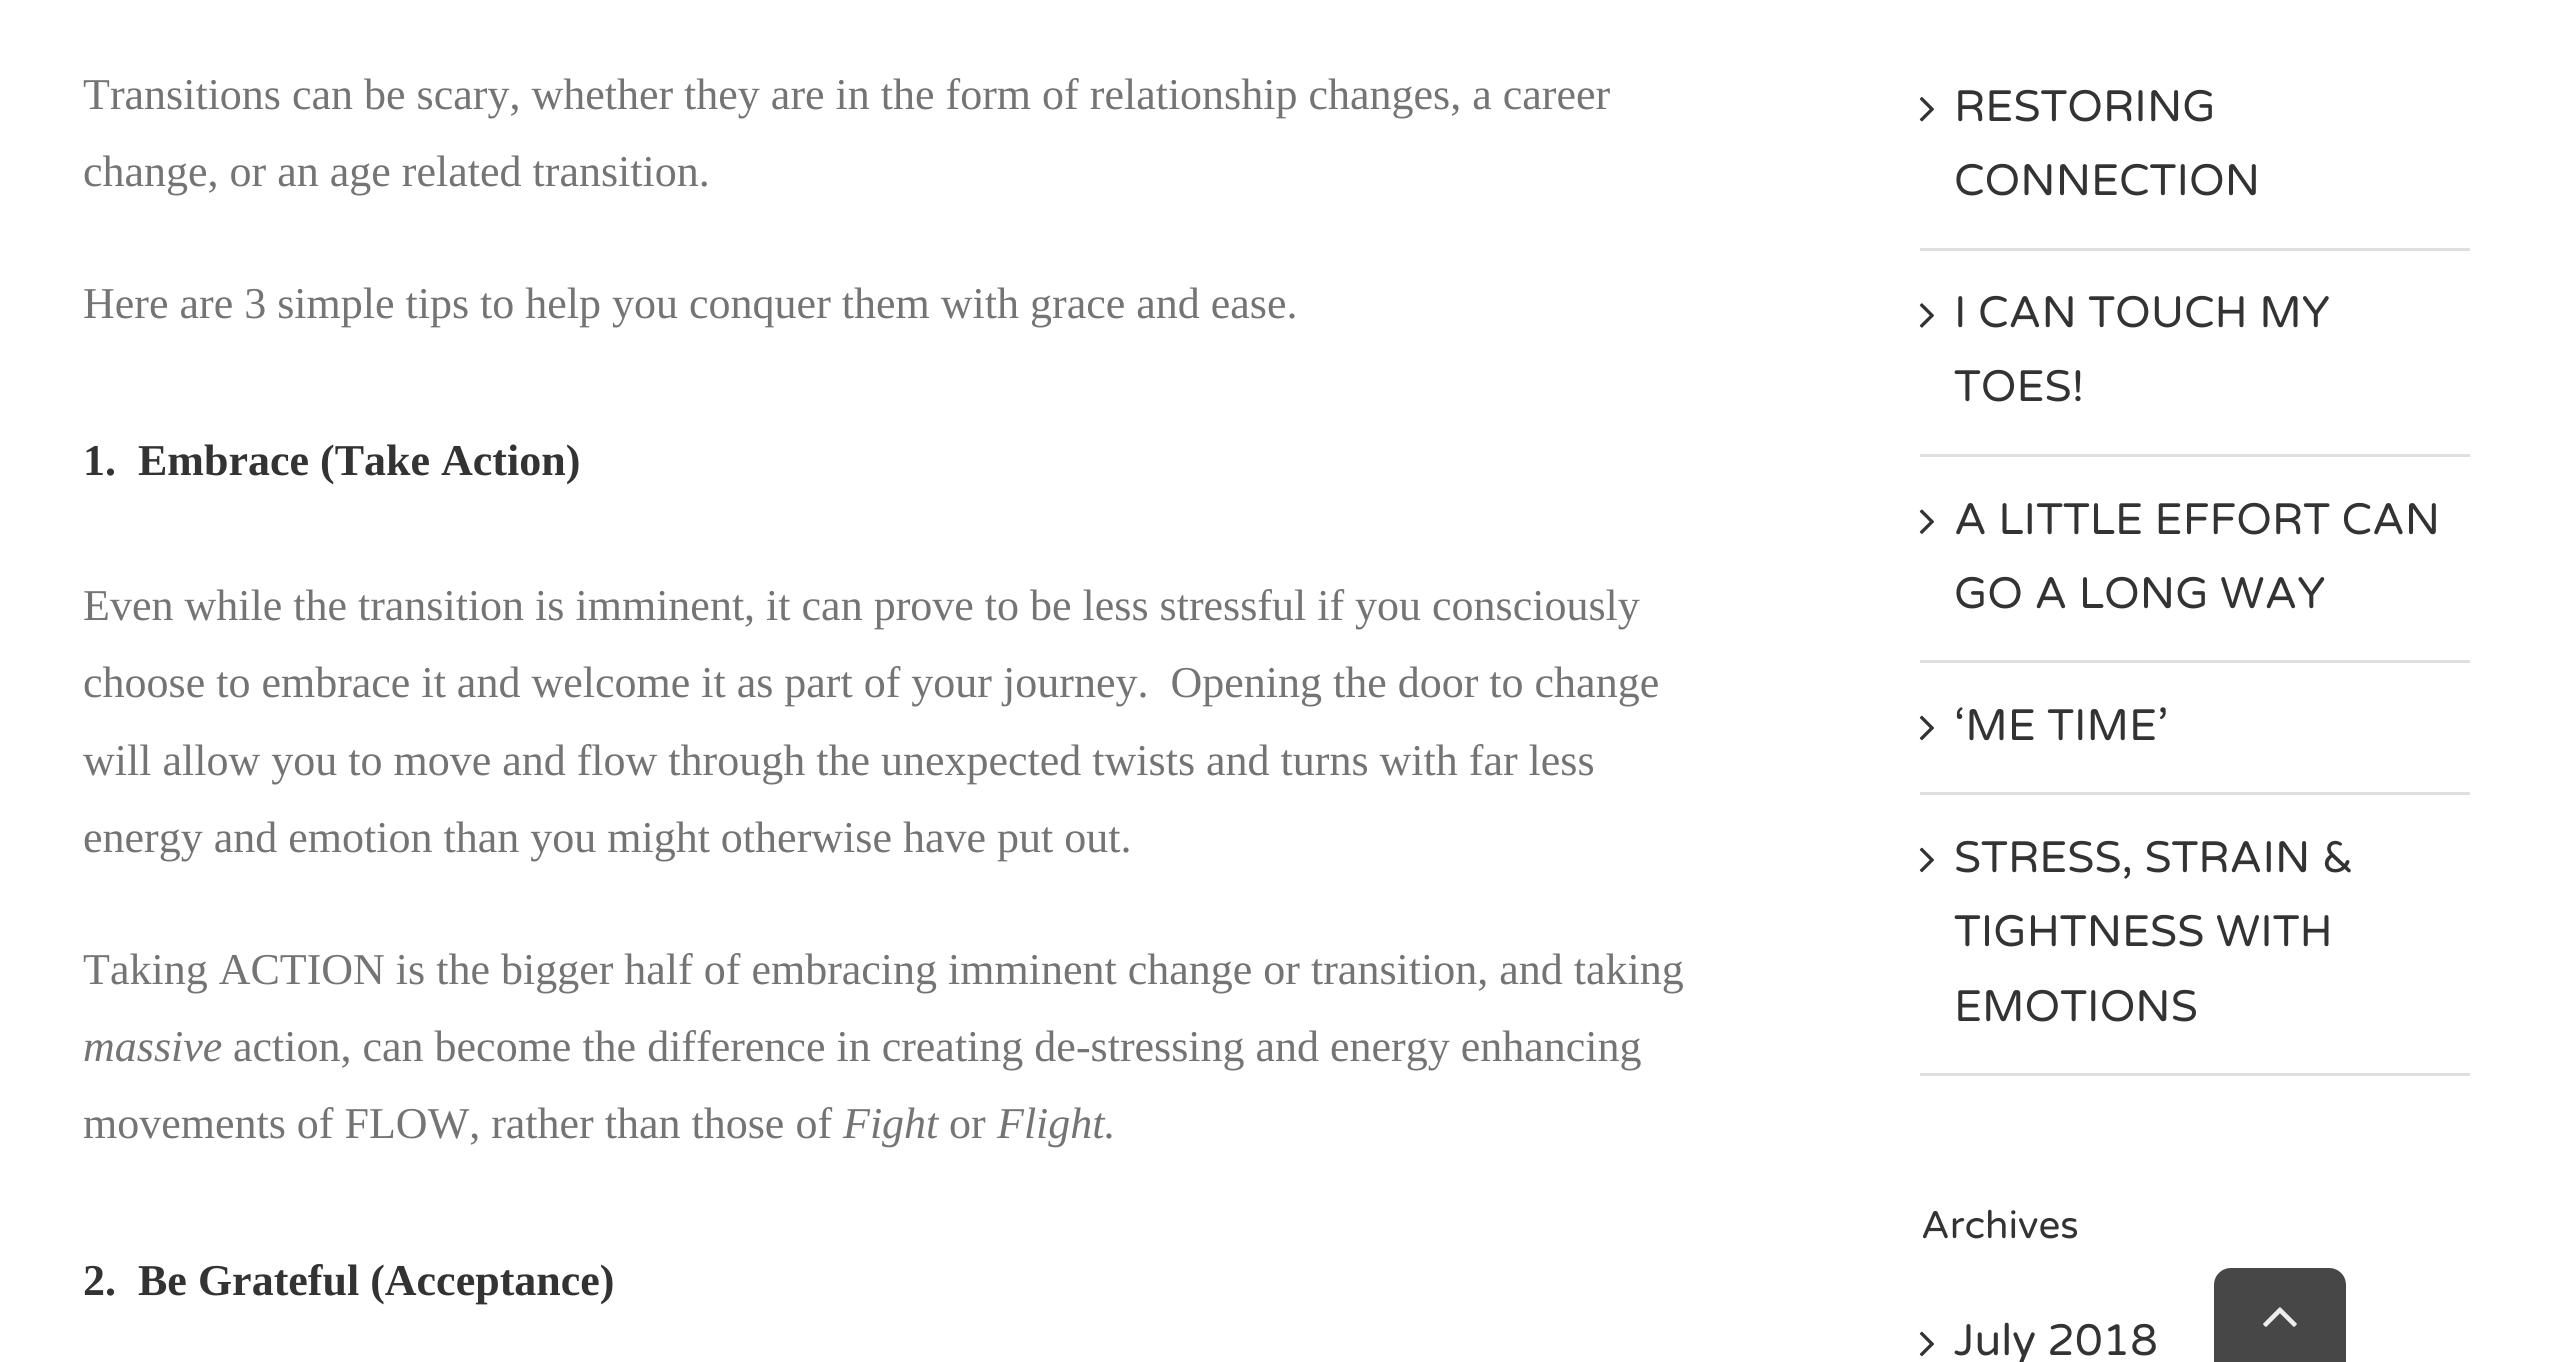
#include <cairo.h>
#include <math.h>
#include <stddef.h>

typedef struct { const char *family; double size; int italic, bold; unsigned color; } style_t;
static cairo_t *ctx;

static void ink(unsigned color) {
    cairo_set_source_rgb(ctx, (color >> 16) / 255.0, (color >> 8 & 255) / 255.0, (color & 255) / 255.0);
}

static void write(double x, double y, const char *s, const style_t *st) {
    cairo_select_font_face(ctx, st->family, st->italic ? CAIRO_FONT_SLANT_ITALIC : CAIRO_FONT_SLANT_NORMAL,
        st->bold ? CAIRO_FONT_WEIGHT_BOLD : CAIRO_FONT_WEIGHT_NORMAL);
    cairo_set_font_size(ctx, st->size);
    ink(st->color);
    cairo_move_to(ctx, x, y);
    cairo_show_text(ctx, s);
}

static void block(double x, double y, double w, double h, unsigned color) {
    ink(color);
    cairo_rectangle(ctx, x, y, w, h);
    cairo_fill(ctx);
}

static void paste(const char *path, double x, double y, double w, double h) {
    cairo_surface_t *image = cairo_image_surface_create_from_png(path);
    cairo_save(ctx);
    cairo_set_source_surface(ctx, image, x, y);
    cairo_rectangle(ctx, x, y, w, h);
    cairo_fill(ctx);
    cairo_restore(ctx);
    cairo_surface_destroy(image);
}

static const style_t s1 = {"Liberation Serif", 44, 0, 0, 0x747474};
static const style_t s2 = {"Liberation Serif", 44, 0, 1, 0x333333};
static const style_t s3 = {"Liberation Serif", 44, 1, 0, 0x747474};
static const style_t s4 = {"Varela Round", 44, 0, 0, 0x333333};
static const style_t s5 = {"Varela Round", 38.5, 0, 0, 0x333333};

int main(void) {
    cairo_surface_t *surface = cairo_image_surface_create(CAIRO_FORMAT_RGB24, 2551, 1362);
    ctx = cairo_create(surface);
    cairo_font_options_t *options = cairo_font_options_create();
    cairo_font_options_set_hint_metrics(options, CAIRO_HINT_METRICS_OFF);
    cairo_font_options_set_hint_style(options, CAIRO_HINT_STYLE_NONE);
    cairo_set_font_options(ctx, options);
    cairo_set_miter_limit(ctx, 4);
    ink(0xffffff);
    cairo_paint(ctx);
    write(83, 109, "Transitions can be scary, whether they are in the form of relationship changes, a career", &s1);
    write(83, 186, "change, or an age related transition.", &s1);
    write(83, 318, "Here are 3 simple tips to help you conquer them with grace and ease.", &s1);
    write(83, 475, "1.  Embrace (Take Action)", &s2);
    write(83, 620, "Even while the transition is imminent, it can prove to be less stressful if you consciously", &s1);
    write(83, 697, "choose to embrace it and welcome it as part of your journey.  Opening the door to change", &s1);
    write(83, 775, "will allow you to move and flow through the unexpected twists and turns with far less", &s1);
    write(83, 852, "energy and emotion than you might otherwise have put out.", &s1);
    write(83, 984, "Taking ACTION is the bigger half of embracing imminent change or transition, and taking", &s1);
    write(83, 1061, "massive", &s3);
    write(233, 1061, "action, can become the difference in creating de-stressing and energy enhancing", &s1);
    write(83, 1138, "movements of FLOW, rather than those of", &s1);
    write(843, 1138, "Fight", &s3);
    write(949, 1138, "or", &s1);
    write(997, 1138, "Flight.", &s3);
    write(83, 1295, "2.  Be Grateful (Acceptance)", &s2);
    block(1920, 248, 550, 3, 0xe0dede);
    paste("pic1.png", 1919, 97, 16, 25);
    write(1954, 121, "RESTORING", &s4);
    write(1954, 195, "CONNECTION", &s4);
    block(1920, 454, 550, 3, 0xe0dede);
    paste("pic2.png", 1919, 303, 16, 25);
    write(1954, 327, "I CAN TOUCH MY", &s4);
    write(1954, 401, "TOES!", &s4);
    block(1920, 660, 550, 3, 0xe0dede);
    paste("pic3.png", 1919, 509, 16, 25);
    write(1954, 534, "A LITTLE EFFORT CAN", &s4);
    write(1954, 608, "GO A LONG WAY", &s4);
    block(1920, 792, 550, 3, 0xe0dede);
    paste("pic4.png", 1919, 715, 15, 26);
    write(1954, 740, "‘ME TIME’", &s4);
    block(1920, 1073, 550, 3, 0xe0dede);
    paste("pic4.png", 1919, 847, 15, 26);
    write(1954, 872, "STRESS, STRAIN &", &s4);
    write(1954, 946, "TIGHTNESS WITH", &s4);
    write(1954, 1021, "EMOTIONS", &s4);
    write(1921, 1238, "Archives", &s5);
    paste("pic4.png", 1919, 1331, 15, 26);
    write(1954, 1355, "July 2018", &s4);
    ink(0x474747);
    cairo_new_path(ctx);
    cairo_move_to(ctx, 2231, 1268);
    cairo_line_to(ctx, 2329, 1268);
    cairo_curve_to(ctx, 2338.5, 1268, 2346, 1275.5, 2346, 1285);
    cairo_line_to(ctx, 2346, 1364);
    cairo_line_to(ctx, 2214, 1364);
    cairo_line_to(ctx, 2214, 1285);
    cairo_curve_to(ctx, 2214, 1275.5, 2221.5, 1268, 2231, 1268);
    cairo_close_path(ctx);
    cairo_fill(ctx);
    paste("pic5.png", 2263, 1307, 34, 20);
    cairo_surface_write_to_png(surface, "screenshot.png");
    cairo_font_options_destroy(options);
    cairo_destroy(ctx);
    cairo_surface_destroy(surface);
    return 0;
}
